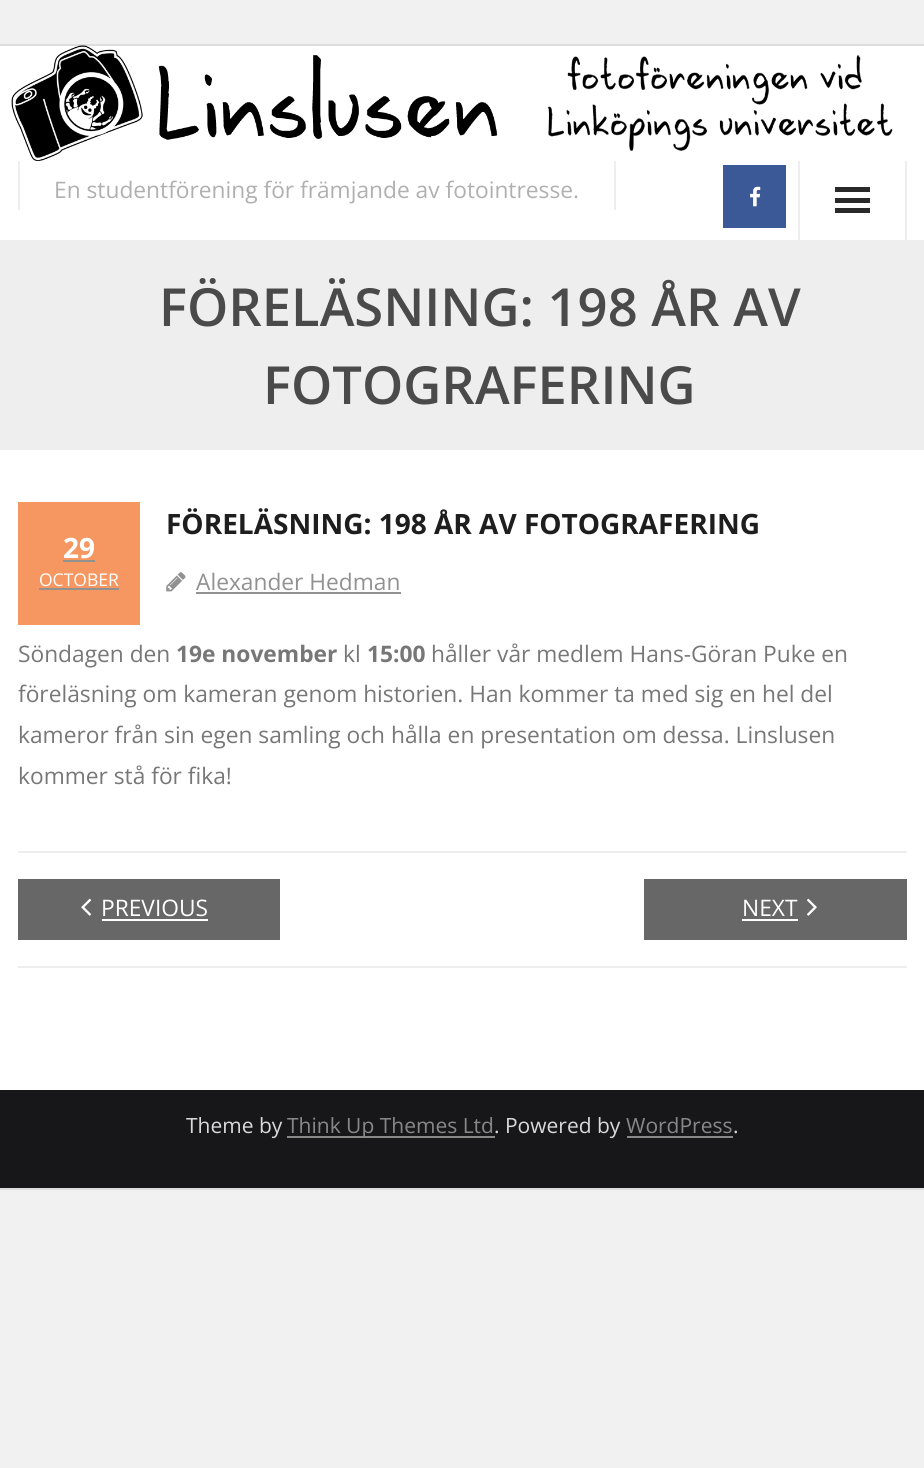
#include <cairo.h>
#include <math.h>
#include <stddef.h>

typedef struct { const char *family; double size; int italic, bold; unsigned color; } style_t;
static cairo_t *ctx;

static void ink(unsigned color) {
    cairo_set_source_rgb(ctx, (color >> 16) / 255.0, (color >> 8 & 255) / 255.0, (color & 255) / 255.0);
}

static void write(double x, double y, const char *s, const style_t *st) {
    cairo_select_font_face(ctx, st->family, st->italic ? CAIRO_FONT_SLANT_ITALIC : CAIRO_FONT_SLANT_NORMAL,
        st->bold ? CAIRO_FONT_WEIGHT_BOLD : CAIRO_FONT_WEIGHT_NORMAL);
    cairo_set_font_size(ctx, st->size);
    ink(st->color);
    cairo_move_to(ctx, x, y);
    cairo_show_text(ctx, s);
}

static void block(double x, double y, double w, double h, unsigned color) {
    ink(color);
    cairo_rectangle(ctx, x, y, w, h);
    cairo_fill(ctx);
}

static void paste(const char *path, double x, double y, double w, double h) {
    cairo_surface_t *image = cairo_image_surface_create_from_png(path);
    cairo_save(ctx);
    cairo_set_source_surface(ctx, image, x, y);
    cairo_rectangle(ctx, x, y, w, h);
    cairo_fill(ctx);
    cairo_restore(ctx);
    cairo_surface_destroy(image);
}

static const style_t s1 = {"Open Sans", 22.75, 0, 0, 0xb0b0b0};
static const style_t s2 = {"Open Sans SemiBold", 52.5, 0, 0, 0x4b4a4b};
static const style_t s3 = {"Open Sans", 28, 0, 1, 0x1e1e1e};
static const style_t s4 = {"Open Sans", 28, 0, 1, 0xffffff};
static const style_t s5 = {"Open Sans", 17.5, 0, 0, 0xffffff};
static const style_t s6 = {"Open Sans", 22.75, 0, 0, 0x919191};
static const style_t s7 = {"Open Sans", 22.75, 0, 0, 0x777777};
static const style_t s8 = {"Open Sans", 22.75, 0, 1, 0x777777};
static const style_t s9 = {"Open Sans", 22.75, 0, 0, 0xffffff};
static const style_t s10 = {"Open Sans", 21, 0, 0, 0xdadada};
static const style_t s11 = {"Open Sans", 21, 0, 0, 0x888888};

int main(void) {
    cairo_surface_t *surface = cairo_image_surface_create(CAIRO_FORMAT_RGB24, 924, 1468);
    ctx = cairo_create(surface);
    cairo_font_options_t *options = cairo_font_options_create();
    cairo_font_options_set_hint_metrics(options, CAIRO_HINT_METRICS_OFF);
    cairo_font_options_set_hint_style(options, CAIRO_HINT_STYLE_NONE);
    cairo_set_font_options(ctx, options);
    cairo_set_miter_limit(ctx, 4);
    ink(0xf1f1f1);
    cairo_paint(ctx);
    block(0, 46, 924, 1044, 0xffffff);
    block(0, 44, 924, 2, 0xdddddd);
    block(0, 1188, 924, 2, 0xdddddd);
    paste("pic1.png", 11, 45, 882, 116);
    block(614, 161, 2, 49, 0xeeeeee);
    block(18, 161, 2, 49, 0xeeeeee);
    write(54, 198, "En studentförening för främjande av fotointresse.", &s1);
    block(723, 165, 63, 63, 0x3b5997);
    paste("pic2.png", 750, 186, 11, 21);
    block(905, 161, 2, 79, 0xeeeeee);
    block(798, 161, 2, 79, 0xeeeeee);
    block(835, 187, 35, 5, 0x292929);
    block(835, 198, 35, 5, 0x292929);
    block(835, 208, 35, 5, 0x292929);
    block(0, 240, 924, 210, 0xefeeee);
    write(159, 326, "FÖRELÄSNING: 198 ÅR AV", &s2);
    write(263, 404, "FOTOGRAFERING", &s2);
    write(166, 534, "FÖRELÄSNING: 198 ÅR AV FOTOGRAFERING", &s3);
    block(18, 502, 122, 123, 0xf69762);
    write(63, 558, "29", &s4);
    block(63, 560, 32, 2, 0x919191);
    write(39, 586, "OCTOBER", &s5);
    block(39, 588, 80, 2, 0x919191);
    paste("pic3.png", 166, 572, 20, 20);
    write(196, 590, "Alexander Hedman", &s6);
    block(196, 592, 205, 2, 0x919191);
    write(18, 662, "Söndagen den", &s7);
    write(176, 662, "19e november", &s8);
    write(343, 662, "kl", &s7);
    write(367, 662, "15:00", &s8);
    write(431, 662, "håller vår medlem Hans-Göran Puke en", &s7);
    write(18, 702, "föreläsning om kameran genom historien. Han kommer ta med sig en hel del", &s7);
    write(18, 743, "kameror från sin egen samling och hålla en presentation om dessa. Linslusen", &s7);
    write(18, 784, "kommer stå för fika!", &s7);
    block(18, 851, 889, 2, 0xeeeeee);
    block(18, 966, 889, 2, 0xeeeeee);
    block(18, 879, 262, 61, 0x676767);
    paste("pic4.png", 81, 898, 11, 18);
    write(101, 916, "PREVIOUS", &s9);
    block(102, 919, 106, 2, 0xffffff);
    block(644, 879, 263, 61, 0x676767);
    write(742, 916, "NEXT", &s9);
    block(742, 919, 56, 2, 0xffffff);
    paste("pic5.png", 807, 898, 10, 18);
    block(0, 1090, 924, 98, 0x171719);
    write(186, 1133, "Theme by", &s10);
    block(287, 1136, 208, 2, 0x888888);
    write(287, 1133, "Think Up Themes Ltd", &s11);
    write(494, 1133, ". Powered by", &s10);
    write(626, 1133, "WordPress", &s11);
    block(627, 1136, 106, 2, 0x888888);
    write(733, 1133, ".", &s10);
    cairo_surface_write_to_png(surface, "screenshot.png");
    cairo_font_options_destroy(options);
    cairo_destroy(ctx);
    cairo_surface_destroy(surface);
    return 0;
}
